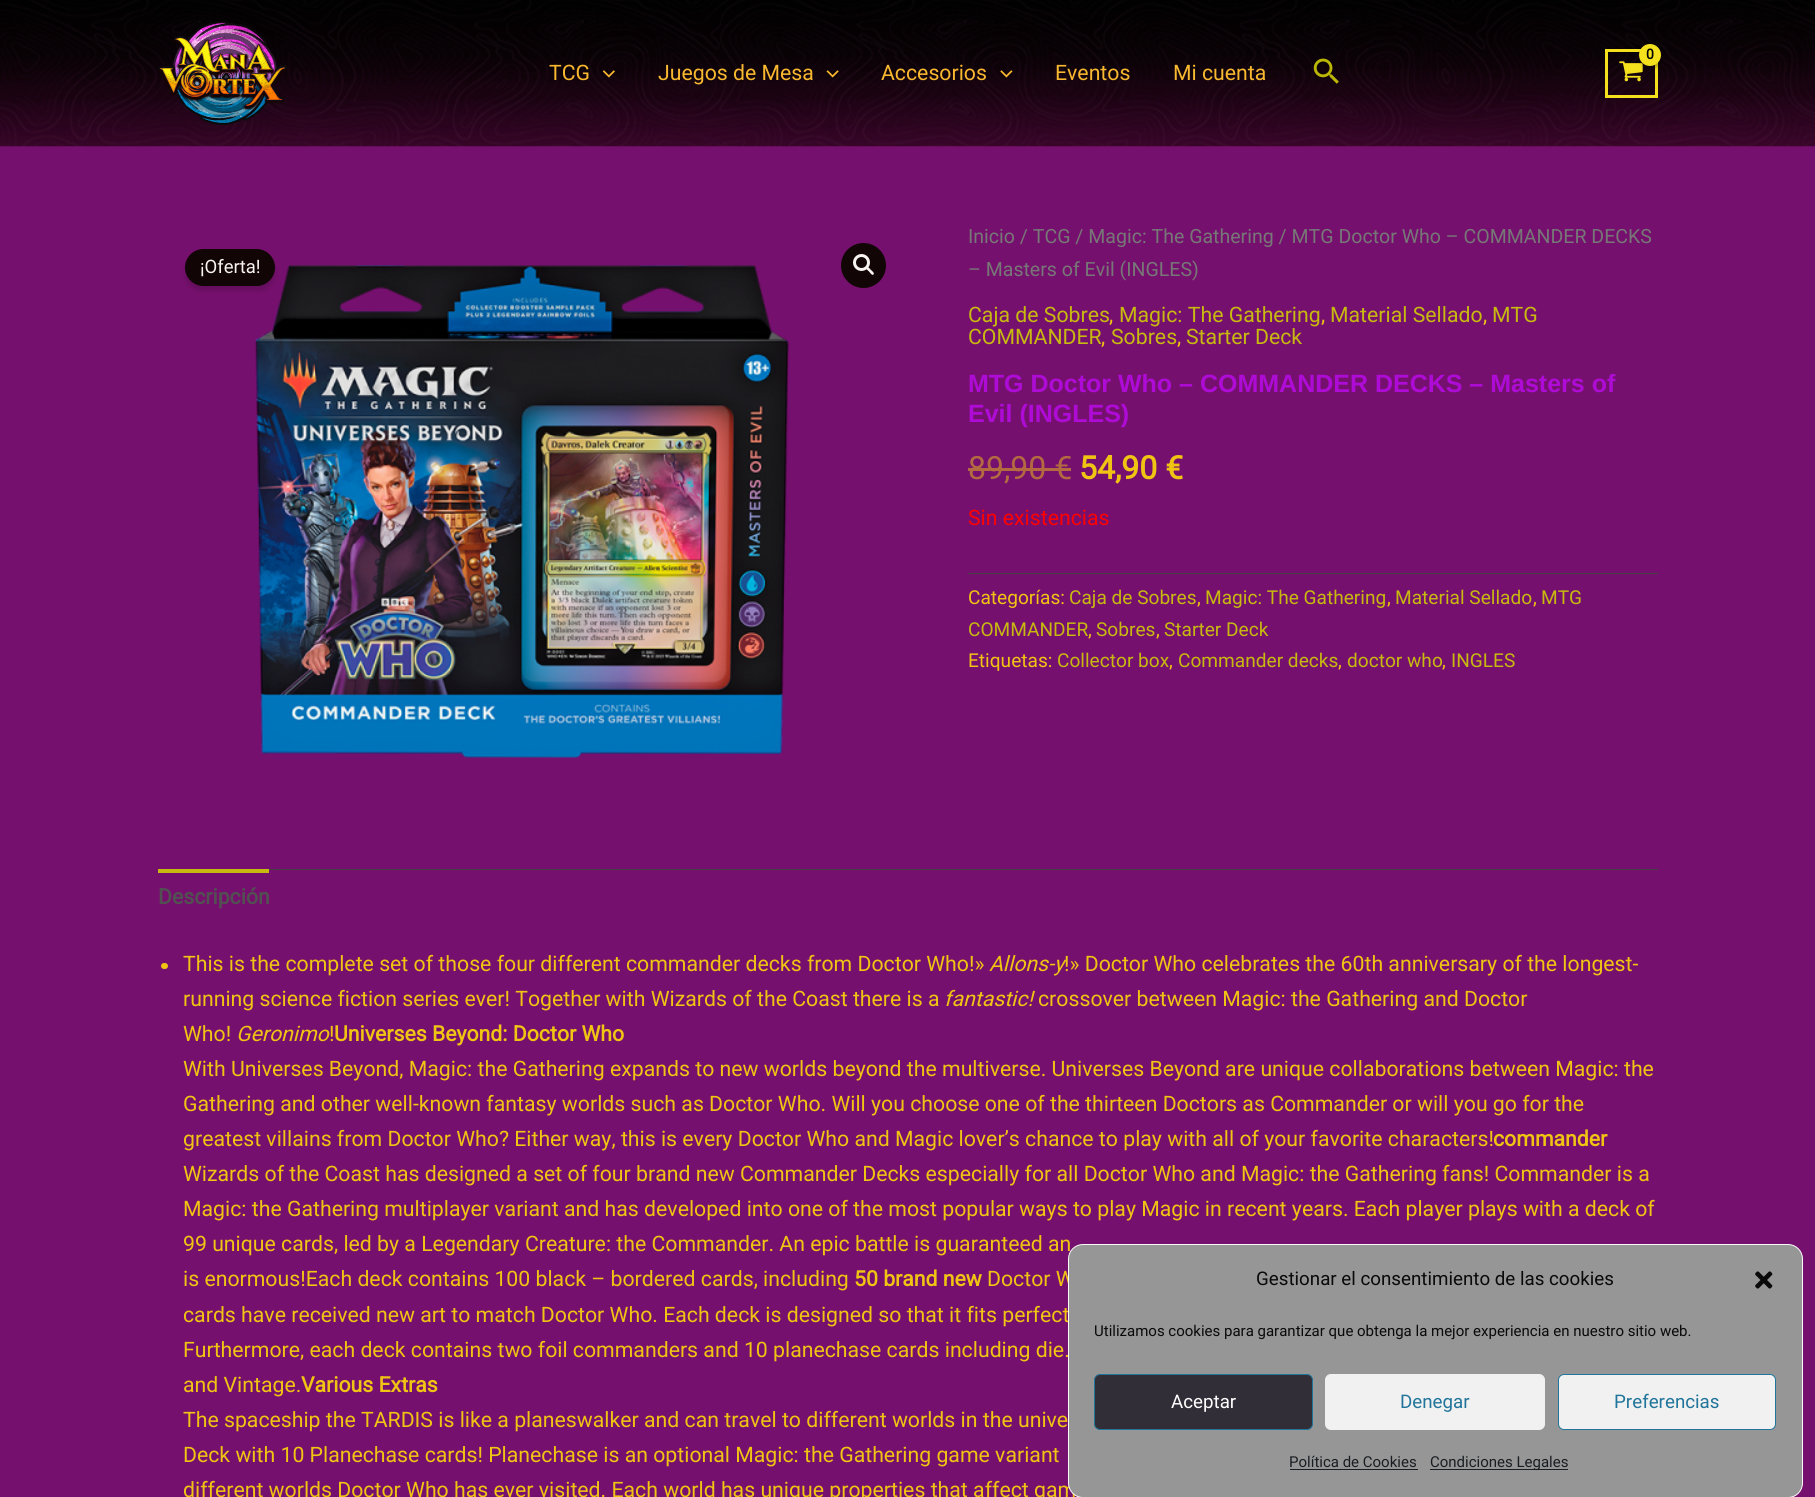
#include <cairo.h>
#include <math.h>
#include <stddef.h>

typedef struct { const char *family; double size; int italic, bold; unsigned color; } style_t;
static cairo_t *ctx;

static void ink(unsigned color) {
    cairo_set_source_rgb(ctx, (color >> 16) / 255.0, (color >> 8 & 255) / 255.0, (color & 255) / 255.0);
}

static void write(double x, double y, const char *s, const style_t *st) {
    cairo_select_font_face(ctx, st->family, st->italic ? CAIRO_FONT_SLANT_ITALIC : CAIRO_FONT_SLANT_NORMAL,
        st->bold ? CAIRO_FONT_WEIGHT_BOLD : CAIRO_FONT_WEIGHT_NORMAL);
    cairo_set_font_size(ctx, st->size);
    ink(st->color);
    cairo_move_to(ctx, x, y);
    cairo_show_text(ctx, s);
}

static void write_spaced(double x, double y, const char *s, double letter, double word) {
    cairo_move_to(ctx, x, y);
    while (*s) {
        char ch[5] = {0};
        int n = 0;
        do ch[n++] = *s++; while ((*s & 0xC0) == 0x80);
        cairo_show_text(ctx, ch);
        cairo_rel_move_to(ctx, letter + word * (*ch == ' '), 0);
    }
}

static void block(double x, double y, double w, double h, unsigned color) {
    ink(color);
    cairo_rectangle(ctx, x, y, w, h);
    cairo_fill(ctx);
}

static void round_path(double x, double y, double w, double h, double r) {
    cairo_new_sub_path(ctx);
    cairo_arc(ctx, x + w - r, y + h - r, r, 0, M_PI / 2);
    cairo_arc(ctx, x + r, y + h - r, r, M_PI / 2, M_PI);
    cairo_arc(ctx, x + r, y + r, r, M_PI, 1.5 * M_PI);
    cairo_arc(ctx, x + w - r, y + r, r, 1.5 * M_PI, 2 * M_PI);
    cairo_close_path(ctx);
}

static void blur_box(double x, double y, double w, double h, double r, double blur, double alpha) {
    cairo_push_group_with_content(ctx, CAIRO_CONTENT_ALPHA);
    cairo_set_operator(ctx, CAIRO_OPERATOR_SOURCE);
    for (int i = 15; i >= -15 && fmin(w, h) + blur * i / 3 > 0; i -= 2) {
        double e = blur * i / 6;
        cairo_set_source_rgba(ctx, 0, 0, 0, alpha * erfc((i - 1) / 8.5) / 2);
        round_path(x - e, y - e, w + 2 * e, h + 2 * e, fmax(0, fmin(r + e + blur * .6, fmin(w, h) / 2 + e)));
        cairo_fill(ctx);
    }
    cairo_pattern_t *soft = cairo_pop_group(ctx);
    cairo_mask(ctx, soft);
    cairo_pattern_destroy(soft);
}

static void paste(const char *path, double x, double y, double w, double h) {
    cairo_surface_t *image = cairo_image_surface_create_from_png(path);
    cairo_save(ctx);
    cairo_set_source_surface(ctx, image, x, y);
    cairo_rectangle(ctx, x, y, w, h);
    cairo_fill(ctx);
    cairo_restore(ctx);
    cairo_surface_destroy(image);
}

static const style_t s1 = {"Roboto", 21.25, 0, 0, 0xf8b82f};
static const style_t s2 = {"Roboto", 18.5, 0, 0, 0xf7f3ef};
static const style_t s3 = {"Roboto", 19.55, 0, 0, 0x777777};
static const style_t s4 = {"Roboto", 21.25, 0, 0, 0xc7b910};
static const style_t s5 = {"Roboto", 21.25, 0, 0, 0xf0c413};
static const style_t s6 = {"Liberation Sans", 25, 0, 1, 0xae0cd6};
static const style_t s7 = {"Roboto", 32, 0, 0, 0xb36a41};
static const style_t s8 = {"Roboto", 32, 0, 1, 0xf0c413};
static const style_t s9 = {"Roboto", 21.25, 0, 0, 0xff0000};
static const style_t s10 = {"Roboto", 19.1, 0, 0, 0xf0c413};
static const style_t s11 = {"Roboto", 19.1, 0, 0, 0xc7b910};
static const style_t s12 = {"Roboto", 21.25, 0, 1, 0x515151};
static const style_t s13 = {"Roboto", 21.25, 1, 0, 0xf0c413};
static const style_t s14 = {"Roboto", 21.25, 0, 1, 0xf0c413};
static const style_t s15 = {"Roboto", 18.75, 0, 0, 0x0a0a0a};
static const style_t s16 = {"Roboto", 15, 0, 0, 0x0a0a0a};
static const style_t s17 = {"Roboto", 18.75, 0, 0, 0xffffff};
static const style_t s18 = {"Roboto", 18.75, 0, 0, 0x21759b};
static const style_t s19 = {"Roboto", 15, 0, 0, 0x191e23};

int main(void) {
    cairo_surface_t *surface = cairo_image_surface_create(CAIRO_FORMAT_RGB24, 1815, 1497);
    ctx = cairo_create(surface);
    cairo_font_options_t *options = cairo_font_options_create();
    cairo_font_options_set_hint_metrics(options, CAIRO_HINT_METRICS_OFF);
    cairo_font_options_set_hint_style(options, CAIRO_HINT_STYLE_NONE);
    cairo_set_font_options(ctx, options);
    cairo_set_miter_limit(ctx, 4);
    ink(0x76106e);
    cairo_paint(ctx);
    block(158, 870, 111, 3, 0xc7b910);
    paste("pic1.png", 0, 0, 1815, 147);
    paste("pic2.png", 158, 21, 129, 104);
    cairo_rectangle(ctx, 1606.5, 50.5, 50, 46);
    ink(0xf5e01e);
    cairo_set_line_width(ctx, 3);
    cairo_stroke(ctx);
    paste("pic3.png", 1619, 61, 24, 21);
    ink(0x000000);
    blur_box(1640, 45, 23, 23, 11.5, 2, 0.3);
    ink(0xf5e01e);
    cairo_arc(ctx, 1650, 55, 11, 0, 2 * M_PI);
    cairo_fill(ctx);
    cairo_select_font_face(ctx, "Roboto", CAIRO_FONT_SLANT_NORMAL, CAIRO_FONT_WEIGHT_BOLD);
    cairo_set_font_size(ctx, 14);
    ink(0x000000);
    write_spaced(1646, 59, "0", -1, 0);
    paste("pic4.png", 1313, 58, 26, 26);
    write(549, 80, "TCG", &s1);
    paste("pic5.png", 603, 70, 12, 8);
    write(658, 80, "Juegos de Mesa", &s1);
    paste("pic6.png", 826, 70, 13, 8);
    write(881, 80, "Accesorios", &s1);
    paste("pic7.png", 1000, 70, 13, 8);
    write(1055, 80, "Eventos", &s1);
    write(1173, 80, "Mi cuenta", &s1);
    paste("pic8.png", 255, 265, 534, 493);
    ink(0x000000);
    blur_box(185, 254, 90, 37, 18.5, 2.5, 0.15);
    ink(0x110505);
    round_path(185, 249, 90, 37, 18.5);
    cairo_fill(ctx);
    write(200, 273, "¡Oferta!", &s2);
    ink(0x110505);
    cairo_new_path(ctx);
    cairo_arc(ctx, 863.5, 265.5, 22.5, 0, 2 * M_PI);
    cairo_fill(ctx);
    cairo_arc(ctx, 861.5, 262.5, 7, 0, 2 * M_PI);
    ink(0xf7f3ef);
    cairo_stroke(ctx);
    cairo_new_path(ctx);
    cairo_move_to(ctx, 866.5, 267.5);
    cairo_curve_to(ctx, 868, 266, 870, 269, 871, 270);
    cairo_curve_to(ctx, 871.5, 270.5, 875, 273, 873.5, 274.5);
    cairo_curve_to(ctx, 872, 276, 870, 272.5, 869, 271.5);
    cairo_curve_to(ctx, 868.5, 271, 865, 268.5, 866.5, 267.5);
    cairo_close_path(ctx);
    cairo_fill(ctx);
    write(968, 243, "Inicio / TCG / Magic: The Gathering / MTG Doctor Who – COMMANDER DECKS", &s3);
    write(968, 276, "– Masters of Evil (INGLES)", &s3);
    write(968, 322, "Caja de Sobres", &s4);
    write(1109, 322, ",", &s5);
    write(1119, 322, "Magic: The Gathering", &s4);
    write(1321, 322, ",", &s5);
    write(1330, 322, "Material Sellado", &s4);
    write(1483, 322, ",", &s5);
    write(1492, 322, "MTG", &s4);
    write(968, 344, "COMMANDER", &s4);
    write(1101, 344, ",", &s5);
    write(1111, 344, "Sobres", &s4);
    write(1177, 344, ",", &s5);
    write(1186, 344, "Starter Deck", &s4);
    write(968, 392, "MTG Doctor Who – COMMANDER DECKS – Masters of", &s6);
    write(968, 422, "Evil (INGLES)", &s6);
    write(968, 479, "89,90 €", &s7);
    block(968, 468, 103, 3, 0xb36a41);
    write(1079, 479, "54,90 €", &s8);
    write(968, 525, "Sin existencias", &s9);
    block(968, 573, 690, 1, 0x424242);
    write(968, 604, "Categorías:", &s10);
    write(1069, 604, "Caja de Sobres", &s11);
    write(1197, 604, ",", &s10);
    write(1205, 604, "Magic: The Gathering", &s11);
    write(1387, 604, ",", &s10);
    write(1395, 604, "Material Sellado", &s11);
    write(1533, 604, ",", &s10);
    write(1541, 604, "MTG", &s11);
    write(968, 636, "COMMANDER", &s11);
    write(1088, 636, ",", &s10);
    write(1096, 636, "Sobres", &s11);
    write(1156, 636, ",", &s10);
    write(1164, 636, "Starter Deck", &s11);
    write(968, 667, "Etiquetas:", &s10);
    write(1057, 667, "Collector box", &s11);
    write(1169, 667, ",", &s10);
    write(1178, 667, "Commander decks", &s11);
    write(1338, 667, ",", &s10);
    write(1347, 667, "doctor who", &s11);
    write(1442, 667, ",", &s10);
    write(1451, 667, "INGLES", &s11);
    block(269, 869, 1389, 1, 0x424242);
    block(158, 869, 111, 1, 0xc1bf0b);
    write(158, 904, "Descripción", &s12);
    ink(0xf0c413);
    round_path(161, 963, 7, 6, 3);
    cairo_fill(ctx);
    write(183, 971, "This is the complete set of those four different commander decks from Doctor Who!»", &s5);
    write(989, 971, "Allons-y", &s13);
    write(1064, 971, "!» Doctor Who celebrates the 60th anniversary of the longest-", &s5);
    write(183, 1006, "running science fiction series ever! Together with Wizards of the Coast there is a", &s5);
    write(944, 1006, "fantastic!", &s13);
    write(1038, 1006, "crossover between Magic: the Gathering and Doctor", &s5);
    write(183, 1041, "Who!", &s5);
    write(236, 1041, "Geronimo", &s13);
    write(329, 1041, "!", &s5);
    write(334, 1041, "Universes Beyond: Doctor Who", &s14);
    write(183, 1076, "With Universes Beyond, Magic: the Gathering expands to new worlds beyond the multiverse. Universes Beyond are unique collaborations between Magic: the", &s5);
    write(183, 1111, "Gathering and other well-known fantasy worlds such as Doctor Who. Will you choose one of the thirteen Doctors as Commander or will you go for the", &s5);
    write(183, 1146, "greatest villains from Doctor Who? Either way, this is every Doctor Who and Magic lover’s chance to play with all of your favorite characters!", &s5);
    write(1493, 1146, "commander", &s14);
    write(183, 1181, "Wizards of the Coast has designed a set of four brand new Commander Decks especially for all Doctor Who and Magic: the Gathering fans! Commander is a", &s5);
    write(183, 1216, "Magic: the Gathering multiplayer variant and has developed into one of the most popular ways to play Magic in recent years. Each player plays with a deck of", &s5);
    write(183, 1251, "99 unique cards, led by a Legendary Creature: the Commander. An epic battle is guaranteed an", &s5);
    write(183, 1286, "is enormous!Each deck contains 100 black – bordered cards, including", &s5);
    write(854, 1286, "50 brand new", &s14);
    write(987, 1286, "Doctor W", &s5);
    write(183, 1322, "cards have received new art to match Doctor Who. Each deck is designed so that it fits perfect", &s5);
    write(183, 1357, "Furthermore, each deck contains two foil commanders and 10 planechase cards including die.", &s5);
    write(183, 1392, "and Vintage.", &s5);
    write(301, 1392, "Various Extras", &s14);
    write(183, 1427, "The spaceship the TARDIS is like a planeswalker and can travel to different worlds in the unive", &s5);
    write(183, 1462, "Deck with 10 Planechase cards! Planechase is an optional Magic: the Gathering game variant", &s5);
    write(183, 1497, "different worlds Doctor Who has ever visited. Each world has unique properties that affect gam", &s5);
    ink(0x969696);
    round_path(1068.5, 1244.5, 734, 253, 14.5);
    cairo_fill_preserve(ctx);
    ink(0xf9f9f9);
    cairo_set_line_width(ctx, 1);
    cairo_stroke(ctx);
    write(1256, 1285, "Gestionar el consentimiento de las cookies", &s15);
    paste("pic9.png", 1755, 1271, 18, 18);
    write(1094, 1336, "Utilizamos cookies para garantizar que obtenga la mejor experiencia en nuestro sitio web.", &s16);
    ink(0x312e38);
    round_path(1094.5, 1374.5, 218, 55, 5.5);
    cairo_fill_preserve(ctx);
    ink(0x21759b);
    cairo_stroke(ctx);
    write(1171, 1408, "Aceptar", &s17);
    ink(0xf1f1f1);
    round_path(1325.5, 1374.5, 219, 55, 5.5);
    cairo_fill_preserve(ctx);
    cairo_stroke(ctx);
    write(1400, 1408, "Denegar", &s18);
    ink(0xf1f1f1);
    round_path(1558.5, 1374.5, 217, 55, 5.5);
    cairo_fill_preserve(ctx);
    ink(0x21759b);
    cairo_stroke(ctx);
    write(1614, 1408, "Preferencias", &s18);
    write(1289, 1467, "Política de Cookies", &s19);
    block(1290, 1469, 128, 1, 0x191e23);
    block(1430, 1469, 138, 1, 0x191e23);
    write(1430, 1467, "Condiciones Legales", &s19);
    cairo_surface_write_to_png(surface, "screenshot.png");
    cairo_font_options_destroy(options);
    cairo_destroy(ctx);
    cairo_surface_destroy(surface);
    return 0;
}
